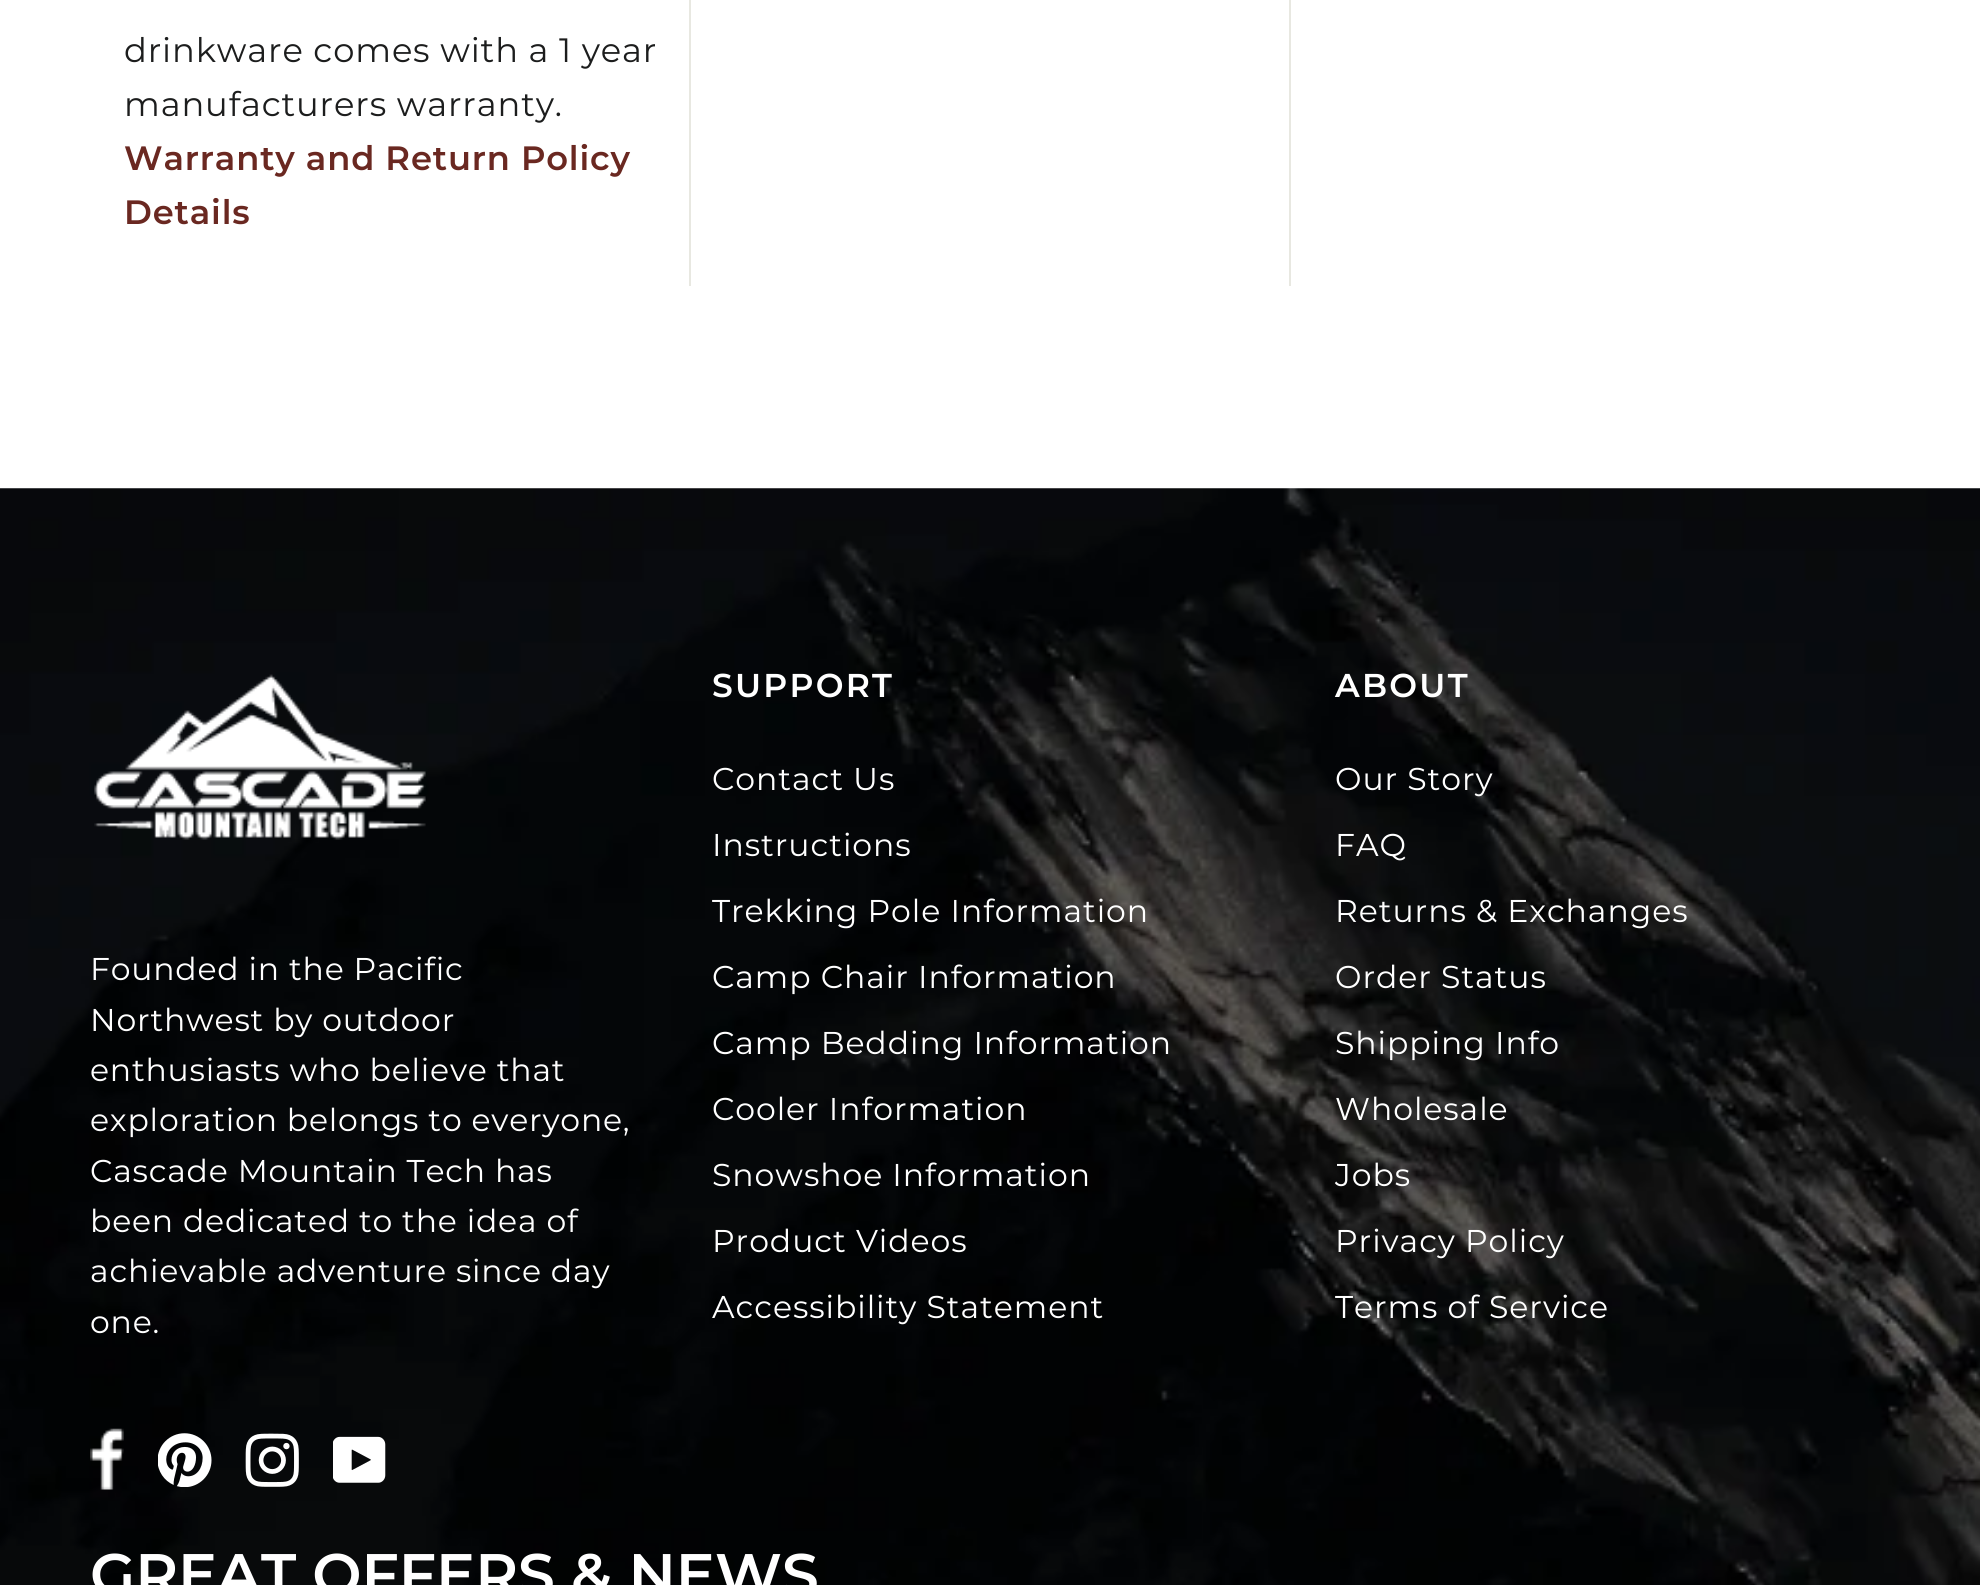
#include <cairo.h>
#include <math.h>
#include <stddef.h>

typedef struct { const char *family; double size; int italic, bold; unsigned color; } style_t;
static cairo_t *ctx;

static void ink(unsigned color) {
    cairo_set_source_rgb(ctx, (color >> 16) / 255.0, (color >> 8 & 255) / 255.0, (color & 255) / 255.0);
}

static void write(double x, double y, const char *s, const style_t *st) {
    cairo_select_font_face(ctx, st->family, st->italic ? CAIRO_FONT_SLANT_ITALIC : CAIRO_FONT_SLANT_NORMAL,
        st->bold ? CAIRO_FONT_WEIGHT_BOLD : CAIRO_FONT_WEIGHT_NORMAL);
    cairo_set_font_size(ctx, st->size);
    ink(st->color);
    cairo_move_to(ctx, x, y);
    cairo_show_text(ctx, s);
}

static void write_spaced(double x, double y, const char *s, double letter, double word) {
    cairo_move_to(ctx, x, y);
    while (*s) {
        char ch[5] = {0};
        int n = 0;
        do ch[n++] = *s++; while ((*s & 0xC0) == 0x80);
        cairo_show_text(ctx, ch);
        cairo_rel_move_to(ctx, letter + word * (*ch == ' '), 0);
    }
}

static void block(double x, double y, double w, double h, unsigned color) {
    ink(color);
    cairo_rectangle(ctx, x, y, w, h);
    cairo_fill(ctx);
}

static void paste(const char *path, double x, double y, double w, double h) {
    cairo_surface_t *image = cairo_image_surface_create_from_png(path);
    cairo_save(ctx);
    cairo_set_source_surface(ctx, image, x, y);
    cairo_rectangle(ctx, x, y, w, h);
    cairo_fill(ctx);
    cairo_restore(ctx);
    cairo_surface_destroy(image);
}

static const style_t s1 = {"Montserrat SemiBold", 58.5, 0, 0, 0xffffff};

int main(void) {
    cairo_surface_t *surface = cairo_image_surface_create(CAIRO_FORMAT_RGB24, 1980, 1585);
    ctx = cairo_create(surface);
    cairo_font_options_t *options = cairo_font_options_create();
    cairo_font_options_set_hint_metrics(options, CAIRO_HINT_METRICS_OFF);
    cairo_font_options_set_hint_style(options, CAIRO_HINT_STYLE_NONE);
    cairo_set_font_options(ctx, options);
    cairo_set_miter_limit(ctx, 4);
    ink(0xffffff);
    cairo_paint(ctx);
    block(689, 0, 2, 286, 0xe8e8e1);
    cairo_select_font_face(ctx, "Montserrat", CAIRO_FONT_SLANT_NORMAL, CAIRO_FONT_WEIGHT_NORMAL);
    cairo_set_font_size(ctx, 33.75);
    ink(0x1c1d1d);
    write_spaced(124, 62, "drinkware comes with a 1 year", 0.85, 0);
    write_spaced(124, 116, "manufacturers warranty.", 0.85, 0);
    cairo_select_font_face(ctx, "Montserrat SemiBold", CAIRO_FONT_SLANT_NORMAL, CAIRO_FONT_WEIGHT_NORMAL);
    ink(0x6a2821);
    write_spaced(124, 170, "Warranty and Return Policy", 0.85, 0);
    write_spaced(124, 224, "Details", 0.85, 0);
    block(1289, 0, 2, 286, 0xe8e8e1);
    paste("pic1.png", 0, 488, 1980, 1097);
    paste("pic2.png", 94, 674, 332, 166);
    cairo_select_font_face(ctx, "Montserrat", CAIRO_FONT_SLANT_NORMAL, CAIRO_FONT_WEIGHT_NORMAL);
    cairo_set_font_size(ctx, 31.5);
    ink(0xffffff);
    write_spaced(90, 980, "Founded in the Pacific", 0.8, 0);
    write_spaced(90, 1031, "Northwest by outdoor", 0.8, 0);
    write_spaced(90, 1081, "enthusiasts who believe that", 0.8, 0);
    write_spaced(90, 1131, "exploration belongs to everyone,", 0.8, 0);
    write_spaced(90, 1182, "Cascade Mountain Tech has", 0.8, 0);
    write_spaced(90, 1232, "been dedicated to the idea of", 0.8, 0);
    write_spaced(90, 1282, "achievable adventure since day", 0.8, 0);
    write_spaced(90, 1333, "one.", 0.8, 0);
    paste("pic3.png", 90, 1428, 34, 62);
    paste("pic4.png", 158, 1433, 54, 54);
    paste("pic5.png", 245, 1433, 54, 54);
    paste("pic6.png", 333, 1436, 53, 47);
    cairo_select_font_face(ctx, "Montserrat SemiBold", CAIRO_FONT_SLANT_NORMAL, CAIRO_FONT_WEIGHT_NORMAL);
    cairo_set_font_size(ctx, 33);
    write_spaced(712, 697, "SUPPORT", 2.25, 0);
    cairo_select_font_face(ctx, "Montserrat", CAIRO_FONT_SLANT_NORMAL, CAIRO_FONT_WEIGHT_NORMAL);
    cairo_set_font_size(ctx, 31.5);
    write_spaced(712, 790, "Contact Us", 0.95, 0);
    write_spaced(712, 856, "Instructions", 0.95, 0);
    write_spaced(712, 922, "Trekking Pole Information", 0.95, 0);
    write_spaced(712, 988, "Camp Chair Information", 0.95, 0);
    write_spaced(712, 1054, "Camp Bedding Information", 0.95, 0);
    write_spaced(712, 1120, "Cooler Information", 0.95, 0);
    write_spaced(712, 1186, "Snowshoe Information", 0.95, 0);
    write_spaced(712, 1252, "Product Videos", 0.95, 0);
    write_spaced(712, 1318, "Accessibility Statement", 0.95, 0);
    cairo_select_font_face(ctx, "Montserrat SemiBold", CAIRO_FONT_SLANT_NORMAL, CAIRO_FONT_WEIGHT_NORMAL);
    cairo_set_font_size(ctx, 33);
    write_spaced(1335, 697, "ABOUT", 2.25, 0);
    cairo_select_font_face(ctx, "Montserrat", CAIRO_FONT_SLANT_NORMAL, CAIRO_FONT_WEIGHT_NORMAL);
    cairo_set_font_size(ctx, 31.5);
    write_spaced(1335, 790, "Our Story", 0.95, 0);
    write_spaced(1335, 856, "FAQ", 0.95, 0);
    write_spaced(1335, 922, "Returns & Exchanges", 0.95, 0);
    write_spaced(1335, 988, "Order Status", 0.95, 0);
    write_spaced(1335, 1054, "Shipping Info", 0.95, 0);
    write_spaced(1335, 1120, "Wholesale", 0.95, 0);
    write_spaced(1335, 1186, "Jobs", 0.95, 0);
    write_spaced(1335, 1252, "Privacy Policy", 0.95, 0);
    write_spaced(1335, 1318, "Terms of Service", 0.95, 0);
    write(90, 1595, "GREAT OFFERS & NEWS", &s1);
    cairo_surface_write_to_png(surface, "screenshot.png");
    cairo_font_options_destroy(options);
    cairo_destroy(ctx);
    cairo_surface_destroy(surface);
    return 0;
}
